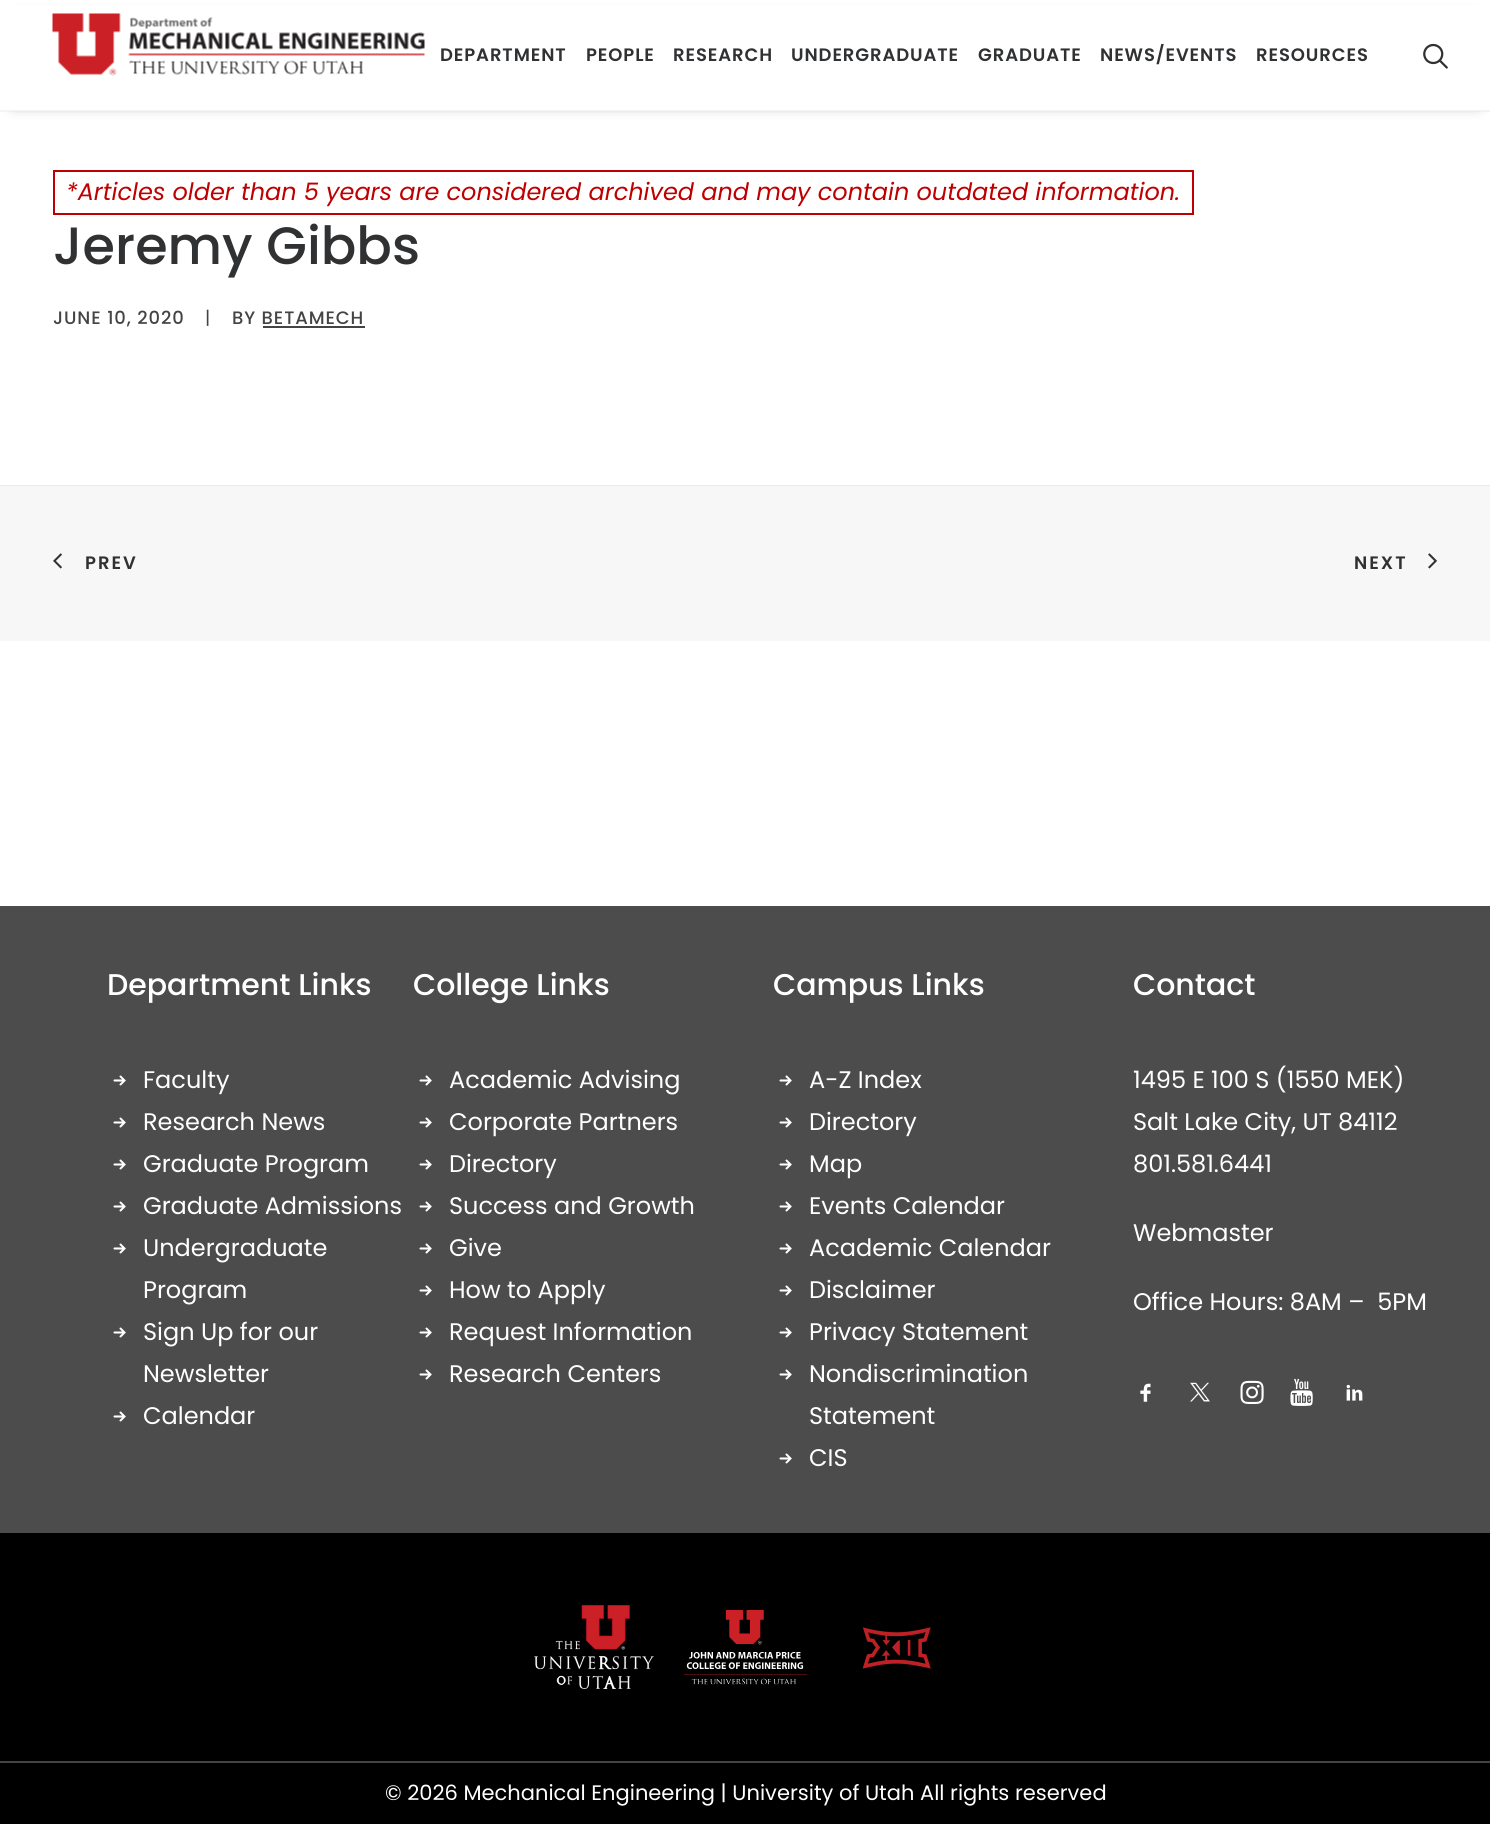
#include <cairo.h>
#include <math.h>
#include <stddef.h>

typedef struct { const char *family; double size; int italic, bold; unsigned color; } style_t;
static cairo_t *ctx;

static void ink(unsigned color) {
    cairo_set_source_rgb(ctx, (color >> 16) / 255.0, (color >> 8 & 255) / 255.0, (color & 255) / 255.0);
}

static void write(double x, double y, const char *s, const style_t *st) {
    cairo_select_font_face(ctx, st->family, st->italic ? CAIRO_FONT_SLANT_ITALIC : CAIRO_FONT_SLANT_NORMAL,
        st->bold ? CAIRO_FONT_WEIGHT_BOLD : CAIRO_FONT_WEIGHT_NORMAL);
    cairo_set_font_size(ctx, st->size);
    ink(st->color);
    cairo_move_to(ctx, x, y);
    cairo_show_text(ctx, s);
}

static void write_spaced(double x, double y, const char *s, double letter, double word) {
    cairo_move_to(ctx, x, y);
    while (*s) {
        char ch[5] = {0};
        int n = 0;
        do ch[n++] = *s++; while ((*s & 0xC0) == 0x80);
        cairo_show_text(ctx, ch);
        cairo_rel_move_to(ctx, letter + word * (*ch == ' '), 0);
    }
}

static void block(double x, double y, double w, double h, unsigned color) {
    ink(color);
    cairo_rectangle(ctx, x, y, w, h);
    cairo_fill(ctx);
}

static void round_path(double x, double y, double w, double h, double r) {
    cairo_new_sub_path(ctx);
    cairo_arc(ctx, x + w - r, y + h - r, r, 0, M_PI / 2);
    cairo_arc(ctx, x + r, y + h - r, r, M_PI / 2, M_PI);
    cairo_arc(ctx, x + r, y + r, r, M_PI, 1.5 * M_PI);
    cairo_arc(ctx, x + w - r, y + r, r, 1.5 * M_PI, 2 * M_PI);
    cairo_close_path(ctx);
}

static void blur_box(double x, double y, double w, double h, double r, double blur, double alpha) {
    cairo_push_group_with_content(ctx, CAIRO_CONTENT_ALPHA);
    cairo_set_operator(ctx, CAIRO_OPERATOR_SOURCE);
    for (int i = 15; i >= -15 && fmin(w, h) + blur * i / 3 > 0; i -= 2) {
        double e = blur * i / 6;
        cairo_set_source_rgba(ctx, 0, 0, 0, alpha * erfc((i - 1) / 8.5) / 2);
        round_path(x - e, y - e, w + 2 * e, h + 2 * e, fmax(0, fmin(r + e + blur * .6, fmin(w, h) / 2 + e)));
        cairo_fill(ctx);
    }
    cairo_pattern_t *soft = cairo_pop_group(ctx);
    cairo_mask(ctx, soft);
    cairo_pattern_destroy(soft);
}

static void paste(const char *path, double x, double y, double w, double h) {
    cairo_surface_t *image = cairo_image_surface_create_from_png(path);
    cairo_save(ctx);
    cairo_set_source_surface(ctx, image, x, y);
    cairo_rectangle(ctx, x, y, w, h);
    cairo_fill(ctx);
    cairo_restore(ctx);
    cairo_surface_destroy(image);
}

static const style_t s1 = {"Poppins", 24, 1, 0, 0xbe0000};
static const style_t s2 = {"Poppins Medium", 52.5, 0, 0, 0x303133};
static const style_t s3 = {"Poppins Medium", 30, 0, 0, 0xffffff};
static const style_t s4 = {"Poppins", 24, 0, 0, 0xffffff};
static const style_t s5 = {"Poppins", 21, 0, 0, 0xffffff};

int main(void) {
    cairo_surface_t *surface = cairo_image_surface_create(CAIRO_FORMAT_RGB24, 1490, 1824);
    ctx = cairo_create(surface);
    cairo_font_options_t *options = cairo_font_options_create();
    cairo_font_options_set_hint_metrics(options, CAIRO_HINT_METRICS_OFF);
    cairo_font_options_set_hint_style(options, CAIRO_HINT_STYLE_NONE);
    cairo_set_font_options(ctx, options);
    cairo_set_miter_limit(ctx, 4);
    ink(0xffffff);
    cairo_paint(ctx);
    ink(0x000000);
    blur_box(14, 21, 1464, 81, 0, 7.5, 0.6);
    block(0, 5, 1490, 106, 0xffffff);
    cairo_set_source_rgba(ctx, 0.918, 0.918, 0.918, 0.5);
    cairo_rectangle(ctx, 0, 110, 1490, 2);
    cairo_fill(ctx);
    paste("pic1.png", 52, 13, 373, 63);
    cairo_select_font_face(ctx, "Poppins SemiBold", CAIRO_FONT_SLANT_NORMAL, CAIRO_FONT_WEIGHT_NORMAL);
    cairo_set_font_size(ctx, 18);
    ink(0x303133);
    write_spaced(440, 61, "DEPARTMENT", 0.9, 0);
    write_spaced(586, 61, "PEOPLE", 0.9, 0);
    write_spaced(673, 61, "RESEARCH", 0.9, 0);
    write_spaced(791, 61, "UNDERGRADUATE", 0.9, 0);
    write_spaced(978, 61, "GRADUATE", 0.9, 0);
    write_spaced(1100, 61, "NEWS/EVENTS", 0.9, 0);
    write_spaced(1256, 61, "RESOURCES", 0.9, 0);
    paste("pic2.png", 1423, 43, 25, 26);
    cairo_rectangle(ctx, 54, 171, 1139, 43);
    ink(0xbe0000);
    cairo_stroke(ctx);
    write(66, 200, "*Articles older than 5 years are considered archived and may contain outdated information.", &s1);
    write(53, 264, "Jeremy Gibbs", &s2);
    cairo_set_font_size(ctx, 18);
    ink(0x444444);
    write_spaced(53, 324, "JUNE 10, 2020", 0.9, 0);
    cairo_select_font_face(ctx, "Poppins", CAIRO_FONT_SLANT_NORMAL, CAIRO_FONT_WEIGHT_NORMAL);
    write_spaced(205, 324, "|", 0.9, 0);
    cairo_select_font_face(ctx, "Poppins Medium", CAIRO_FONT_SLANT_NORMAL, CAIRO_FONT_WEIGHT_NORMAL);
    write_spaced(232, 324, "BY BETAMECH", 0.9, 0);
    block(263, 326, 102, 2, 0x444444);
    block(0, 485, 1490, 1, 0xeaeaea);
    block(0, 486, 1490, 155, 0xf7f7f7);
    paste("pic3.png", 53, 553, 9, 16);
    cairo_select_font_face(ctx, "Poppins SemiBold", CAIRO_FONT_SLANT_NORMAL, CAIRO_FONT_WEIGHT_NORMAL);
    ink(0x303133);
    write_spaced(85, 569, "PREV", 2, 0);
    write_spaced(1354, 569, "NEXT", 2, 0);
    paste("pic4.png", 1428, 553, 9, 16);
    block(0, 906, 1490, 627, 0x4c4c4c);
    write(107, 995, "Department Links", &s3);
    paste("pic5.png", 113, 1075, 13, 11);
    write(143, 1088, "Faculty", &s4);
    paste("pic5.png", 113, 1117, 13, 11);
    write(143, 1130, "Research News", &s4);
    paste("pic5.png", 113, 1159, 13, 11);
    write(143, 1172, "Graduate Program", &s4);
    paste("pic5.png", 113, 1201, 13, 11);
    write(143, 1214, "Graduate Admissions", &s4);
    paste("pic5.png", 113, 1243, 13, 11);
    write(143, 1256, "Undergraduate", &s4);
    write(143, 1298, "Program", &s4);
    paste("pic5.png", 113, 1327, 13, 11);
    write(143, 1340, "Sign Up for our", &s4);
    write(143, 1382, "Newsletter", &s4);
    paste("pic5.png", 113, 1411, 13, 11);
    write(143, 1424, "Calendar", &s4);
    write(413, 995, "College Links", &s3);
    paste("pic5.png", 419, 1075, 13, 11);
    write(449, 1088, "Academic Advising", &s4);
    paste("pic5.png", 419, 1117, 13, 11);
    write(449, 1130, "Corporate Partners", &s4);
    paste("pic5.png", 419, 1159, 13, 11);
    write(449, 1172, "Directory", &s4);
    paste("pic5.png", 419, 1201, 13, 11);
    write(449, 1214, "Success and Growth", &s4);
    paste("pic5.png", 419, 1243, 13, 11);
    write(449, 1256, "Give", &s4);
    paste("pic5.png", 419, 1285, 13, 11);
    write(449, 1298, "How to Apply", &s4);
    paste("pic5.png", 419, 1327, 13, 11);
    write(449, 1340, "Request Information", &s4);
    paste("pic5.png", 419, 1369, 13, 11);
    write(449, 1382, "Research Centers", &s4);
    write(773, 995, "Campus Links", &s3);
    paste("pic5.png", 779, 1075, 13, 11);
    write(809, 1088, "A-Z Index", &s4);
    paste("pic5.png", 779, 1117, 13, 11);
    write(809, 1130, "Directory", &s4);
    paste("pic5.png", 779, 1159, 13, 11);
    write(809, 1172, "Map", &s4);
    paste("pic5.png", 779, 1201, 13, 11);
    write(809, 1214, "Events Calendar", &s4);
    paste("pic5.png", 779, 1243, 13, 11);
    write(809, 1256, "Academic Calendar", &s4);
    paste("pic5.png", 779, 1285, 13, 11);
    write(809, 1298, "Disclaimer", &s4);
    paste("pic5.png", 779, 1327, 13, 11);
    write(809, 1340, "Privacy Statement", &s4);
    paste("pic5.png", 779, 1369, 13, 11);
    write(809, 1382, "Nondiscrimination", &s4);
    write(809, 1424, "Statement", &s4);
    paste("pic5.png", 779, 1453, 13, 11);
    write(809, 1466, "CIS", &s4);
    write(1133, 995, "Contact", &s3);
    write(1133, 1088, "1495 E 100 S (1550 MEK)", &s4);
    write(1133, 1130, "Salt Lake City, UT 84112", &s4);
    write(1133, 1172, "801.581.6441", &s4);
    write(1133, 1241, "Webmaster", &s4);
    write(1133, 1310, "Office Hours: 8AM –  5PM", &s4);
    paste("pic6.png", 1140, 1383, 11, 19);
    paste("pic7.png", 1190, 1382, 20, 20);
    paste("pic8.png", 1240, 1380, 24, 24);
    paste("pic9.png", 1290, 1378, 23, 28);
    paste("pic10.png", 1346, 1384, 17, 17);
    block(0, 1533, 1490, 228, 0x000000);
    paste("pic11.png", 534, 1605, 120, 84);
    paste("pic12.png", 684, 1610, 123, 75);
    paste("pic13.png", 862, 1627, 71, 42);
    block(0, 1763, 1490, 61, 0x000000);
    block(0, 1761, 1490, 2, 0x444444);
    write(385, 1800, "© 2026 Mechanical Engineering | University of Utah All rights reserved", &s5);
    cairo_surface_write_to_png(surface, "screenshot.png");
    cairo_font_options_destroy(options);
    cairo_destroy(ctx);
    cairo_surface_destroy(surface);
    return 0;
}
